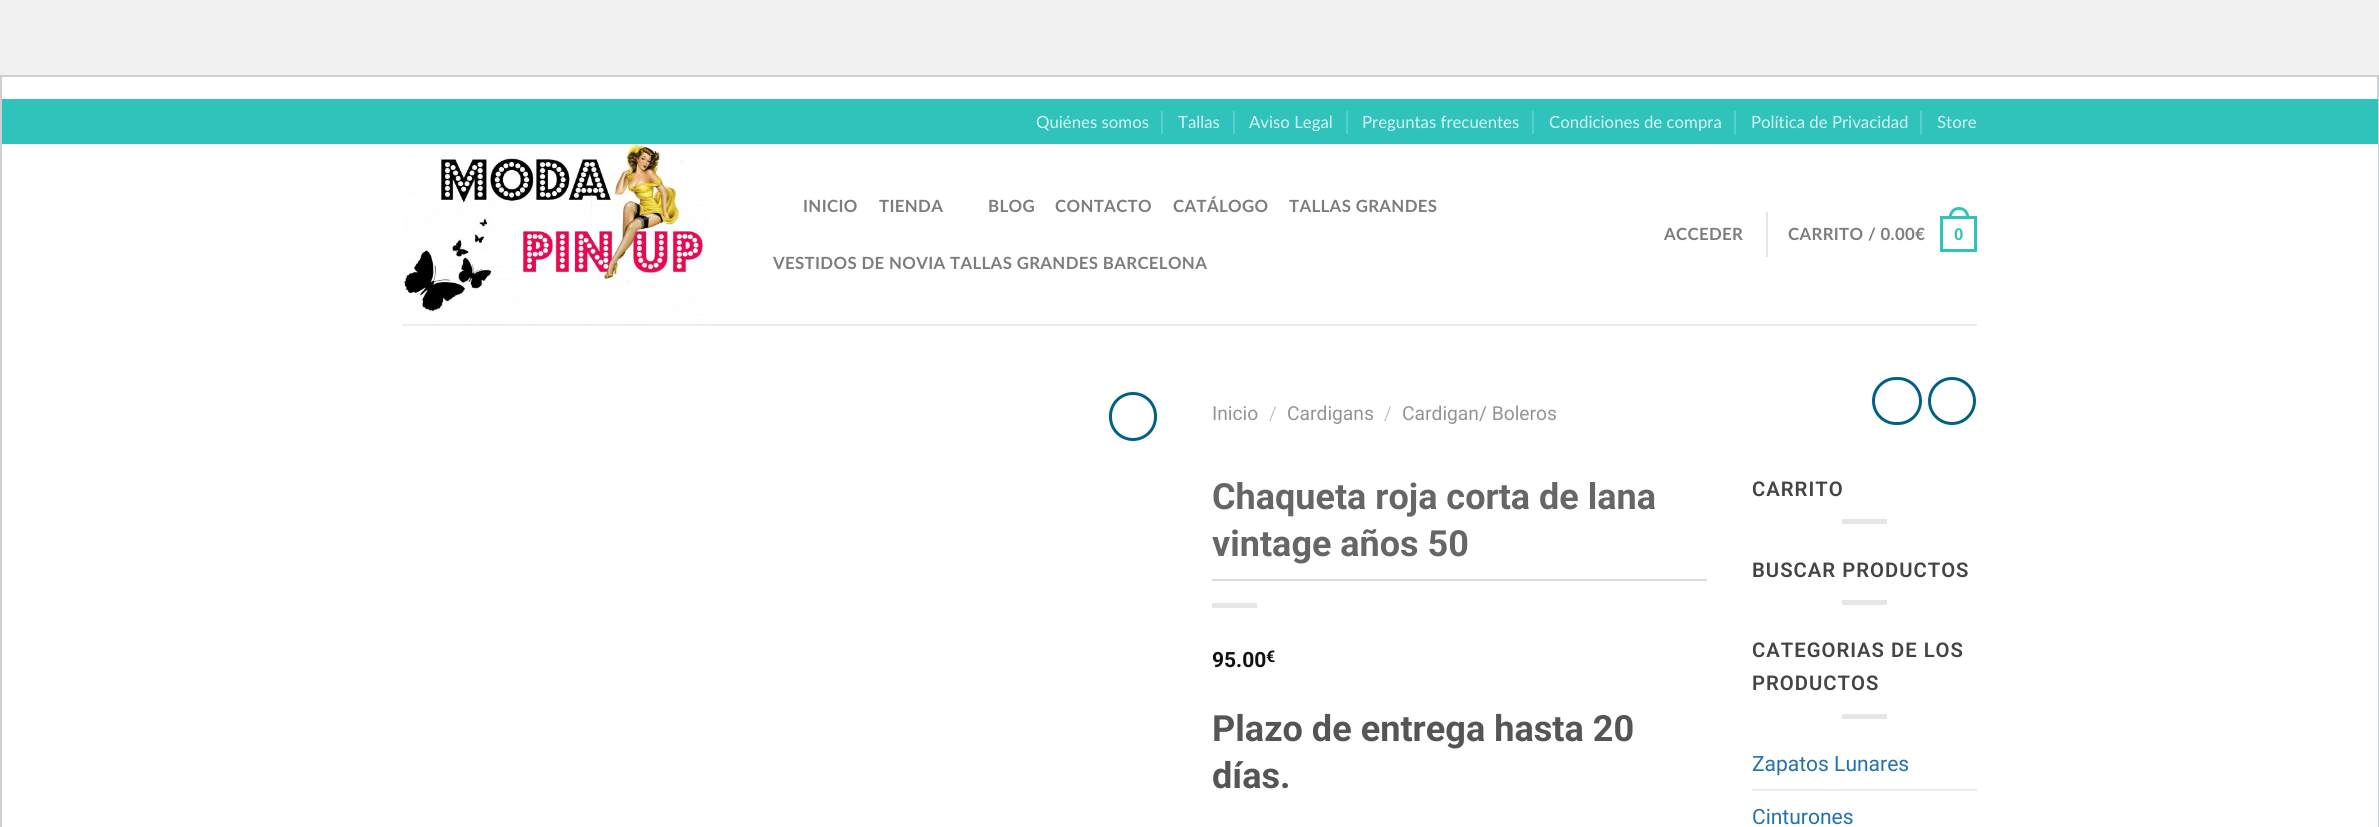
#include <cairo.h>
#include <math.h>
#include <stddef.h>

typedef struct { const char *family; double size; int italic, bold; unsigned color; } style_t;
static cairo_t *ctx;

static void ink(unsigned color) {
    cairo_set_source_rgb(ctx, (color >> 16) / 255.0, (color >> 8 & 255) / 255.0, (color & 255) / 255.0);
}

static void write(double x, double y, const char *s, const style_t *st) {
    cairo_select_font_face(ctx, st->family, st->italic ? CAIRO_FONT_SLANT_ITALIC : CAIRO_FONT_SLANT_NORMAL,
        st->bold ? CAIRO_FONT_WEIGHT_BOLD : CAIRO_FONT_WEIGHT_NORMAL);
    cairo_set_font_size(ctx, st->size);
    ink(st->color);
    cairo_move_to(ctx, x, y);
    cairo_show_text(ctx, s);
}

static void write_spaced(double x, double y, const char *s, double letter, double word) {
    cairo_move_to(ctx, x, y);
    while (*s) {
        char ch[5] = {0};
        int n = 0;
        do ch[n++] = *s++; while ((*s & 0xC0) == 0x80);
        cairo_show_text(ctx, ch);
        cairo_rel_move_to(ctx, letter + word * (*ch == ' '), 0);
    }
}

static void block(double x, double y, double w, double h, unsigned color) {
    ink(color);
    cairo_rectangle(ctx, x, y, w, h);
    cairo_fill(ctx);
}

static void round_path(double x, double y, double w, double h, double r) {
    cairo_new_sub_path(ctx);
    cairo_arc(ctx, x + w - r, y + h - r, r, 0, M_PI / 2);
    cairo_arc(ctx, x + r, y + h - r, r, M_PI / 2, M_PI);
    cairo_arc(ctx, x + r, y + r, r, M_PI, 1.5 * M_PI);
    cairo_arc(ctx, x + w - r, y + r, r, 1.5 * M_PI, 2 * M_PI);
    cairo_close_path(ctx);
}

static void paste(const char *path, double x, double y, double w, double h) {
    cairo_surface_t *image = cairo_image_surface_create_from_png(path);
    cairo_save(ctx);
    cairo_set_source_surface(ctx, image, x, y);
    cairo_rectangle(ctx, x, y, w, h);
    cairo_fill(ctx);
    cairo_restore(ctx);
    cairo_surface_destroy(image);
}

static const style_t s1 = {"Lato", 16.8, 0, 0, 0xd6f3f2};
static const style_t s2 = {"Roboto", 19.25, 0, 0, 0x949494};
static const style_t s3 = {"Roboto Light", 19.25, 0, 0, 0xb2b2b2};
static const style_t s4 = {"Roboto", 36, 0, 1, 0x666666};
static const style_t s5 = {"Roboto", 21, 0, 1, 0x111111};
static const style_t s6 = {"Roboto", 16, 0, 1, 0x111111};
static const style_t s7 = {"Roboto", 36.1, 0, 1, 0x555555};
static const style_t s8 = {"Roboto", 21, 0, 0, 0x2271b1};

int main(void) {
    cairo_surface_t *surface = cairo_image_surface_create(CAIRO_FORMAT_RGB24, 2379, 827);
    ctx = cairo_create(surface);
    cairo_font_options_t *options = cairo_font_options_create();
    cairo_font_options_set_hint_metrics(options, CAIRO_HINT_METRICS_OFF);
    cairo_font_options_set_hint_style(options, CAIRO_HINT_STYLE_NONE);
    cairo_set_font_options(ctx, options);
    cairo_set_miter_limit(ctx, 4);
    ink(0xf1f1f1);
    cairo_paint(ctx);
    block(2, 77, 2375, 22, 0xffffff);
    cairo_rectangle(ctx, 1, 76, 2377, 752);
    ink(0xccd0d4);
    cairo_stroke(ctx);
    block(2, 144, 2376, 683, 0xffffff);
    block(2, 99, 2376, 45, 0x30c3bc);
    write(1036, 128, "Quiénes somos", &s1);
    block(1161, 111, 2, 23, 0x59cfc9);
    write(1178, 128, "Tallas", &s1);
    block(1233, 111, 2, 23, 0x59cfc9);
    write(1249, 128, "Aviso Legal", &s1);
    block(1346, 111, 2, 23, 0x59cfc9);
    write(1362, 128, "Preguntas frecuentes", &s1);
    block(1532, 111, 2, 23, 0x59cfc9);
    write(1549, 128, "Condiciones de compra", &s1);
    block(1734, 111, 2, 23, 0x59cfc9);
    write(1751, 128, "Política de Privacidad", &s1);
    block(1920, 111, 2, 23, 0x59cfc9);
    write(1937, 128, "Store", &s1);
    paste("pic1.png", 404, 144, 304, 180);
    cairo_select_font_face(ctx, "Lato", CAIRO_FONT_SLANT_NORMAL, CAIRO_FONT_WEIGHT_BOLD);
    ink(0x7d7d7d);
    write_spaced(803, 212, "INICIO", 0.35, 0);
    write_spaced(879, 212, "TIENDA", 0.35, 0);
    write_spaced(988, 212, "BLOG", 0.35, 0);
    write_spaced(1055, 212, "CONTACTO", 0.35, 0);
    write_spaced(1173, 212, "CATÁLOGO", 0.35, 0);
    write_spaced(1289, 212, "TALLAS GRANDES", 0.35, 0);
    write_spaced(773, 269, "VESTIDOS DE NOVIA TALLAS GRANDES BARCELONA", 0.35, 0);
    write_spaced(1664, 240, "ACCEDER", 0.35, 0);
    block(1766, 212, 2, 45, 0xe6e6e6);
    ink(0x7d7d7d);
    write_spaced(1788, 240, "CARRITO / 0.00€", 0.35, 0);
    cairo_rectangle(ctx, 1941.5, 217.5, 34, 33);
    ink(0x30c3bc);
    cairo_set_line_width(ctx, 3);
    cairo_stroke(ctx);
    cairo_set_fill_rule(ctx, CAIRO_FILL_RULE_EVEN_ODD);
    cairo_new_path(ctx);
    cairo_move_to(ctx, 1959, 207);
    cairo_curve_to(ctx, 1966, 207, 1969.5, 212.5, 1969.5, 219);
    cairo_line_to(ctx, 1948.5, 219);
    cairo_curve_to(ctx, 1948.5, 212.5, 1952, 207, 1959, 207);
    cairo_close_path(ctx);
    cairo_move_to(ctx, 1959, 210);
    cairo_curve_to(ctx, 1964.5, 210, 1966.5, 214.5, 1966.5, 219);
    cairo_line_to(ctx, 1951.5, 219);
    cairo_curve_to(ctx, 1951.5, 214.5, 1953.5, 210, 1959, 210);
    cairo_close_path(ctx);
    cairo_fill(ctx);
    cairo_select_font_face(ctx, "Liberation Sans", CAIRO_FONT_SLANT_NORMAL, CAIRO_FONT_WEIGHT_BOLD);
    write_spaced(1954, 240, "0", 0.35, 0);
    block(402, 324, 1575, 2, 0xececec);
    round_path(1110.5, 393.5, 45, 46, 22.5);
    ink(0x016087);
    cairo_stroke(ctx);
    write(1212, 420, "Inicio", &s2);
    write(1269, 420, "/", &s3);
    write(1287, 420, "Cardigans", &s2);
    write(1384, 420, "/", &s3);
    write(1402, 420, "Cardigan/ Boleros", &s2);
    block(1212, 579, 495, 2, 0xdadada);
    write(1212, 509, "Chaqueta roja corta de lana", &s4);
    write(1212, 556, "vintage años 50", &s4);
    block(1212, 603, 45, 5, 0xe6e6e6);
    write(1212, 667, "95.00", &s5);
    write(1266, 662, "€", &s6);
    write(1212, 741, "Plazo de entrega hasta 20", &s7);
    write(1212, 788, "días.", &s7);
    round_path(1873.5, 378.5, 47, 45, 22.5);
    ink(0x016087);
    cairo_stroke(ctx);
    cairo_arc(ctx, 1952, 401, 22.5, 0, 2 * M_PI);
    cairo_stroke(ctx);
    cairo_select_font_face(ctx, "Roboto SemiBold", CAIRO_FONT_SLANT_NORMAL, CAIRO_FONT_WEIGHT_NORMAL);
    cairo_set_font_size(ctx, 20.25);
    ink(0x444444);
    write_spaced(1752, 496, "CARRITO", 1, 0);
    block(1842, 519, 45, 5, 0xe6e6e6);
    ink(0x444444);
    write_spaced(1752, 577, "BUSCAR PRODUCTOS", 1, 0);
    block(1842, 600, 45, 5, 0xe6e6e6);
    ink(0x444444);
    write_spaced(1752, 657, "CATEGORIAS DE LOS", 1, 0);
    write_spaced(1752, 690, "PRODUCTOS", 1, 0);
    block(1842, 714, 45, 5, 0xe6e6e6);
    write(1752, 771, "Zapatos Lunares", &s8);
    block(1752, 789, 225, 2, 0xececec);
    write(1752, 824, "Cinturones", &s8);
    cairo_surface_write_to_png(surface, "screenshot.png");
    cairo_font_options_destroy(options);
    cairo_destroy(ctx);
    cairo_surface_destroy(surface);
    return 0;
}
